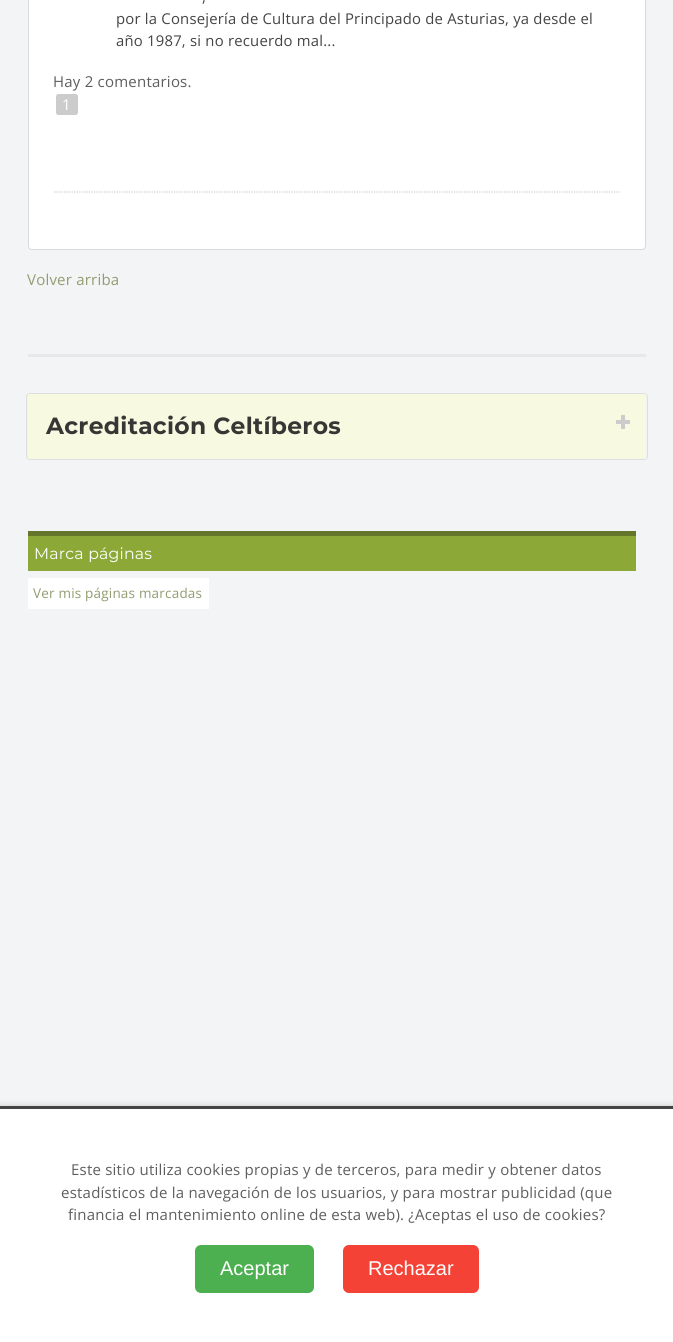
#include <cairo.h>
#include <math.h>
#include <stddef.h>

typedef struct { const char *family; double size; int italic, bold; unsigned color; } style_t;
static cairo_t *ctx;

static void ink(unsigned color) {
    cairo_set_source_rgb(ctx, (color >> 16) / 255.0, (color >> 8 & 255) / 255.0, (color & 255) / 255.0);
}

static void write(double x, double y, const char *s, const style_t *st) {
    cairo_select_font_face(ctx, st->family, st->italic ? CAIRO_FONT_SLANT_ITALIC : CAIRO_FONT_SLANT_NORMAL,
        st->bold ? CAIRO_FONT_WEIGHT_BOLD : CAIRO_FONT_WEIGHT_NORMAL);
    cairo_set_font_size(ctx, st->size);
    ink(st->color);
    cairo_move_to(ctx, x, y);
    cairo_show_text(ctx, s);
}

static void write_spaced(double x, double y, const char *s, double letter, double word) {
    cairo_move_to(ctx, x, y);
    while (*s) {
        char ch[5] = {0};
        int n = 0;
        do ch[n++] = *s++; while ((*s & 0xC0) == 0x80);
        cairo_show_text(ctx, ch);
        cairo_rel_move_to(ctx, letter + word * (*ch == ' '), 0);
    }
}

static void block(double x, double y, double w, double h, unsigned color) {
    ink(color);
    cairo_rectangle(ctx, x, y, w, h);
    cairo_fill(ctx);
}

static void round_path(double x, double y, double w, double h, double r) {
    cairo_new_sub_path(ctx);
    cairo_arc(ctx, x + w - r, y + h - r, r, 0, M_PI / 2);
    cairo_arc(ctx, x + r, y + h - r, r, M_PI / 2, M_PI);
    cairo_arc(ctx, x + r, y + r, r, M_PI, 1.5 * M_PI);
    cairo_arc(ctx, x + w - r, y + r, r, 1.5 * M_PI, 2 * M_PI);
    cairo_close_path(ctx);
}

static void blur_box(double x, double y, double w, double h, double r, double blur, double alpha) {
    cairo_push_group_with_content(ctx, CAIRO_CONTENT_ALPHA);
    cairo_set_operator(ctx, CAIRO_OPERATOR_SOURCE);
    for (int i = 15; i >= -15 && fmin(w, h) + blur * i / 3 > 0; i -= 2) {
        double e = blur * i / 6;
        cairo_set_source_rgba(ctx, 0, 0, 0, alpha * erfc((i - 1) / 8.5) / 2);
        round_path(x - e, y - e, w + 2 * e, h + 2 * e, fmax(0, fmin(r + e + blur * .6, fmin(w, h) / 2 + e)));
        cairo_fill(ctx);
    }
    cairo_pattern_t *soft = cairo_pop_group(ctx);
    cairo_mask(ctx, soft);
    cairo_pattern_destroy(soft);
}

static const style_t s1 = {"Liberation Sans", 20, 0, 0, 0xffffff};

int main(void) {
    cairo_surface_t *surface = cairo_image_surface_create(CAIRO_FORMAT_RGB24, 673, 1342);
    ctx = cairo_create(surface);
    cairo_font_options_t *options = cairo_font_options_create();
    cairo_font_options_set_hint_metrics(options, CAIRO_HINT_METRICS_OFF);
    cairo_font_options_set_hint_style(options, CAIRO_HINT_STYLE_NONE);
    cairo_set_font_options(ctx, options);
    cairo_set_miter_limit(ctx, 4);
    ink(0xf3f4f5);
    cairo_paint(ctx);
    ink(0xffffff);
    round_path(28.5, -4.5, 617, 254, 3.5);
    cairo_fill_preserve(ctx);
    ink(0xd9d9d9);
    cairo_set_line_width(ctx, 1);
    cairo_stroke(ctx);
    cairo_new_path(ctx);
    cairo_move_to(ctx, 54, 192);
    cairo_line_to(ctx, 620, 192);
    ink(0xcccccc);
    cairo_set_line_width(ctx, 1.2);
    cairo_set_dash(ctx, (double[]){1.25, 1.25}, 2, 0);
    cairo_stroke(ctx);
    cairo_select_font_face(ctx, "Open Sans", CAIRO_FONT_SLANT_NORMAL, CAIRO_FONT_WEIGHT_NORMAL);
    cairo_set_font_size(ctx, 14.85);
    ink(0x444444);
    write_spaced(202, 2, ",", 0.22, 0);
    write_spaced(116, 24, "por la Consejería de Cultura del Principado de Asturias, ya desde el", 0.22, 0);
    write_spaced(116, 46, "año 1987, si no recuerdo mal...", 0.22, 0);
    cairo_set_font_size(ctx, 15);
    ink(0x5e5e5e);
    write_spaced(53, 87, "Hay 2 comentarios.", 0.22, 0);
    ink(0xcccccc);
    round_path(56, 94, 22, 21, 2.5);
    cairo_fill(ctx);
    ink(0xffffff);
    write_spaced(62, 110, "1", 0.22, 0);
    ink(0x909d71);
    write_spaced(27, 285, "Volver arriba", 0.22, 0);
    block(28, 354, 618, 3, 0xe7e8e9);
    round_path(26.5, 393.5, 621, 66, 3.5);
    ink(0xdddedf);
    cairo_set_line_width(ctx, 1);
    cairo_set_dash(ctx, NULL, 0, 0);
    cairo_stroke(ctx);
    block(28, 394, 618, 65, 0xf7f9e0);
    cairo_select_font_face(ctx, "Montserrat", CAIRO_FONT_SLANT_NORMAL, CAIRO_FONT_WEIGHT_BOLD);
    cairo_set_font_size(ctx, 23.4);
    ink(0x363635);
    write_spaced(46, 434, "Acreditación Celtíberos", 0.3, 0);
    block(621, 415, 4, 14, 0xcccccc);
    block(616, 420, 14, 4, 0xcccccc);
    block(28, 536, 608, 35, 0x8ca937);
    block(28, 531, 608, 5, 0x63762b);
    cairo_select_font_face(ctx, "Montserrat", CAIRO_FONT_SLANT_NORMAL, CAIRO_FONT_WEIGHT_NORMAL);
    cairo_set_font_size(ctx, 15.75);
    ink(0xffffff);
    write_spaced(34, 559, "Marca páginas", 0.2, 0);
    block(28, 578, 181, 31, 0xffffff);
    cairo_select_font_face(ctx, "Open Sans", CAIRO_FONT_SLANT_NORMAL, CAIRO_FONT_WEIGHT_NORMAL);
    cairo_set_font_size(ctx, 13.5);
    ink(0x909d71);
    write_spaced(33, 598, "Ver mis páginas marcadas", 0.2, 0);
    ink(0x000000);
    blur_box(0, 1106, 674, 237, 0, 3, 0.2);
    block(0, 1109, 673, 233, 0xffffff);
    block(0, 1106, 673, 3, 0x444444);
    cairo_set_font_size(ctx, 15);
    ink(0x5e5e5e);
    write_spaced(71, 1175, "Este sitio utiliza cookies propias y de terceros, para medir y obtener datos", 0.22, 0);
    write_spaced(61, 1198, "estadísticos de la navegación de los usuarios, y para mostrar publicidad (que", 0.22, 0);
    write_spaced(68, 1220, "financia el mantenimiento online de esta web). ¿Aceptas el uso de cookies?", 0.22, 0);
    ink(0x4caf50);
    round_path(195, 1245, 119, 48, 6);
    cairo_fill(ctx);
    write(220, 1275, "Aceptar", &s1);
    ink(0xf44336);
    round_path(343, 1245, 136, 48, 6);
    cairo_fill(ctx);
    write(368, 1275, "Rechazar", &s1);
    cairo_surface_write_to_png(surface, "screenshot.png");
    cairo_font_options_destroy(options);
    cairo_destroy(ctx);
    cairo_surface_destroy(surface);
    return 0;
}
